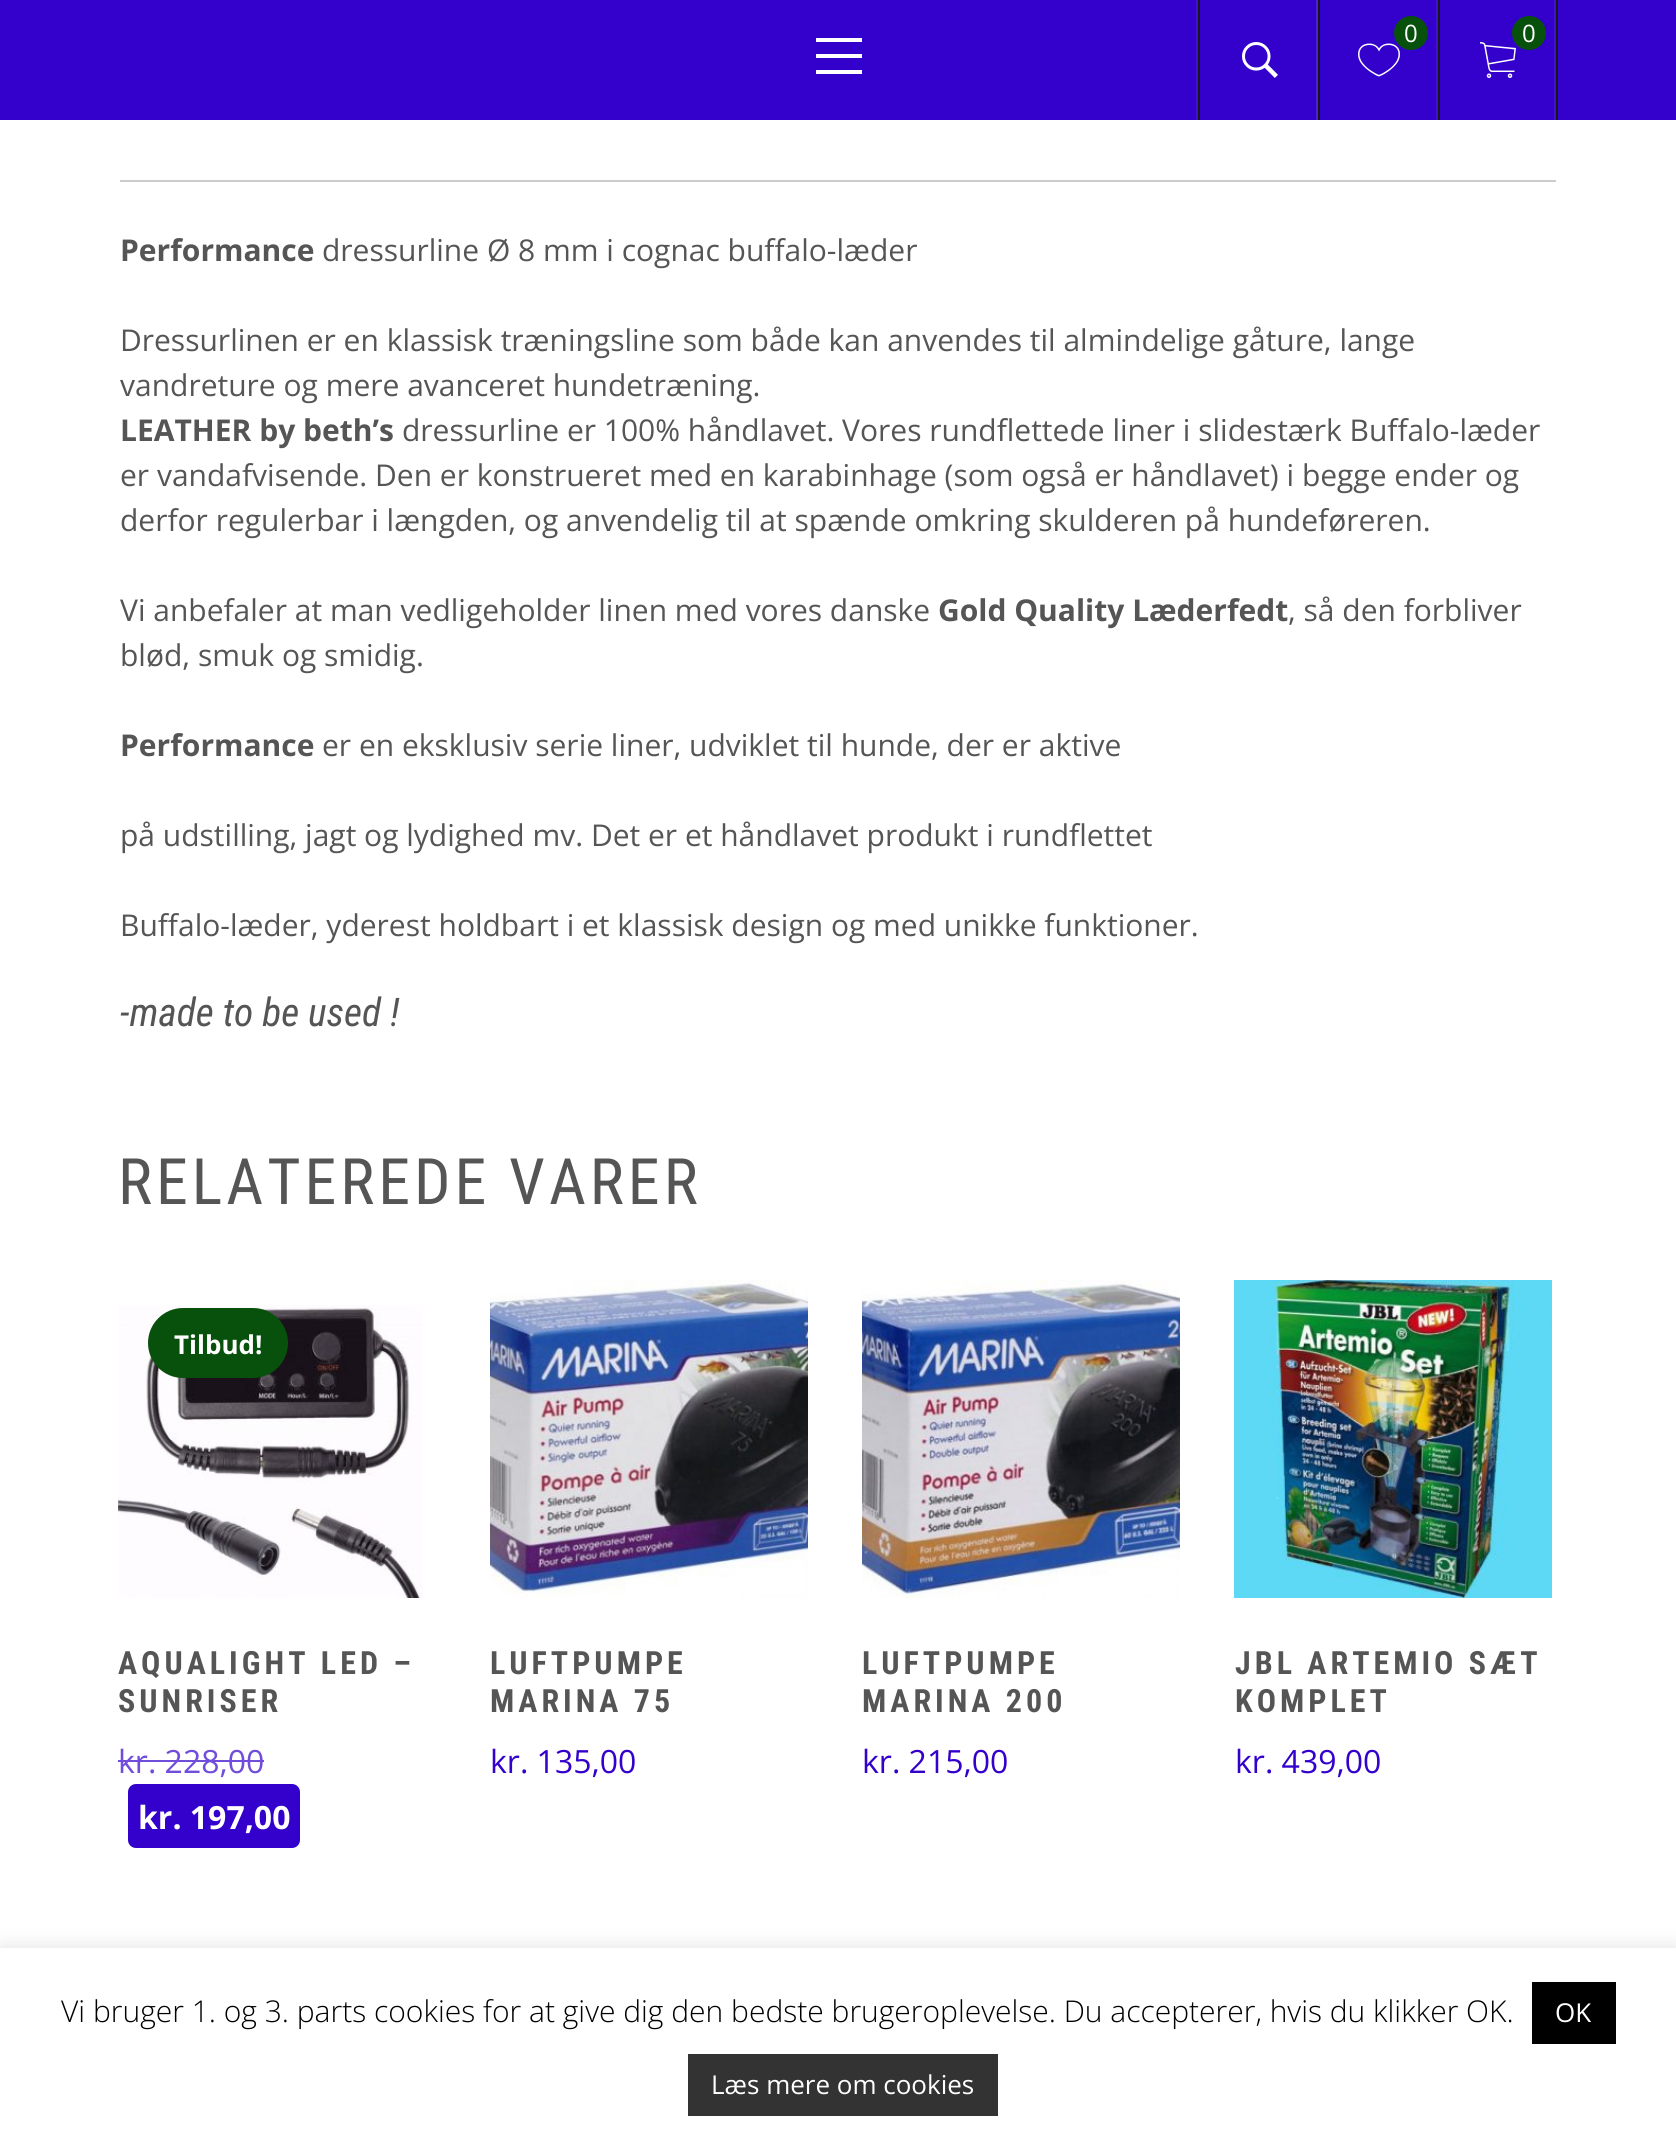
#include <cairo.h>
#include <math.h>
#include <stddef.h>

typedef struct { const char *family; double size; int italic, bold; unsigned color; } style_t;
static cairo_t *ctx;

static void ink(unsigned color) {
    cairo_set_source_rgb(ctx, (color >> 16) / 255.0, (color >> 8 & 255) / 255.0, (color & 255) / 255.0);
}

static void write(double x, double y, const char *s, const style_t *st) {
    cairo_select_font_face(ctx, st->family, st->italic ? CAIRO_FONT_SLANT_ITALIC : CAIRO_FONT_SLANT_NORMAL,
        st->bold ? CAIRO_FONT_WEIGHT_BOLD : CAIRO_FONT_WEIGHT_NORMAL);
    cairo_set_font_size(ctx, st->size);
    ink(st->color);
    cairo_move_to(ctx, x, y);
    cairo_show_text(ctx, s);
}

static void write_spaced(double x, double y, const char *s, double letter, double word) {
    cairo_move_to(ctx, x, y);
    while (*s) {
        char ch[5] = {0};
        int n = 0;
        do ch[n++] = *s++; while ((*s & 0xC0) == 0x80);
        cairo_show_text(ctx, ch);
        cairo_rel_move_to(ctx, letter + word * (*ch == ' '), 0);
    }
}

static void block(double x, double y, double w, double h, unsigned color) {
    ink(color);
    cairo_rectangle(ctx, x, y, w, h);
    cairo_fill(ctx);
}

static void round_path(double x, double y, double w, double h, double r) {
    cairo_new_sub_path(ctx);
    cairo_arc(ctx, x + w - r, y + h - r, r, 0, M_PI / 2);
    cairo_arc(ctx, x + r, y + h - r, r, M_PI / 2, M_PI);
    cairo_arc(ctx, x + r, y + r, r, M_PI, 1.5 * M_PI);
    cairo_arc(ctx, x + w - r, y + r, r, 1.5 * M_PI, 2 * M_PI);
    cairo_close_path(ctx);
}

static void blur_box(double x, double y, double w, double h, double r, double blur, double alpha) {
    cairo_push_group_with_content(ctx, CAIRO_CONTENT_ALPHA);
    cairo_set_operator(ctx, CAIRO_OPERATOR_SOURCE);
    for (int i = 15; i >= -15 && fmin(w, h) + blur * i / 3 > 0; i -= 2) {
        double e = blur * i / 6;
        cairo_set_source_rgba(ctx, 0, 0, 0, alpha * erfc((i - 1) / 8.5) / 2);
        round_path(x - e, y - e, w + 2 * e, h + 2 * e, fmax(0, fmin(r + e + blur * .6, fmin(w, h) / 2 + e)));
        cairo_fill(ctx);
    }
    cairo_pattern_t *soft = cairo_pop_group(ctx);
    cairo_mask(ctx, soft);
    cairo_pattern_destroy(soft);
}

static void paste(const char *path, double x, double y, double w, double h) {
    cairo_surface_t *image = cairo_image_surface_create_from_png(path);
    cairo_save(ctx);
    cairo_set_source_surface(ctx, image, x, y);
    cairo_rectangle(ctx, x, y, w, h);
    cairo_fill(ctx);
    cairo_restore(ctx);
    cairo_surface_destroy(image);
}

static const style_t s1 = {"Open Sans", 24, 0, 0, 0xffffff};
static const style_t s2 = {"Open Sans", 30, 0, 1, 0x555555};
static const style_t s3 = {"Open Sans", 30, 0, 0, 0x555555};
static const style_t s4 = {"Roboto Condensed", 39.5, 1, 0, 0x555555};
static const style_t s5 = {"Open Sans", 26, 0, 1, 0xffffff};
static const style_t s6 = {"Open Sans", 32, 0, 0, 0x704ddb};
static const style_t s7 = {"Open Sans", 32, 0, 1, 0xffffff};
static const style_t s8 = {"Open Sans", 32, 0, 0, 0x3300cc};
static const style_t s9 = {"Open Sans Light", 30, 0, 0, 0x000000};
static const style_t s10 = {"Open Sans", 26, 0, 0, 0xffffff};

int main(void) {
    cairo_surface_t *surface = cairo_image_surface_create(CAIRO_FORMAT_RGB24, 1676, 2139);
    ctx = cairo_create(surface);
    cairo_font_options_t *options = cairo_font_options_create();
    cairo_font_options_set_hint_metrics(options, CAIRO_HINT_METRICS_OFF);
    cairo_font_options_set_hint_style(options, CAIRO_HINT_STYLE_NONE);
    cairo_set_font_options(ctx, options);
    cairo_set_miter_limit(ctx, 4);
    ink(0xffffff);
    cairo_paint(ctx);
    block(0, 0, 1676, 120, 0x3300cc);
    block(1196, 0, 2, 120, 0x4111cf);
    block(1198, 0, 2, 120, 0x171717);
    paste("pic1.png", 1242, 42, 36, 36);
    block(1316, 0, 2, 120, 0x4e21d2);
    block(1436, 0, 2, 120, 0x4111cf);
    block(1318, 0, 2, 120, 0x171717);
    paste("pic2.png", 1358, 43, 42, 34);
    ink(0x08510c);
    cairo_arc(ctx, 1411, 33, 17, 0, 2 * M_PI);
    cairo_fill(ctx);
    write(1404, 42, "0", &s1);
    block(1554, 0, 2, 120, 0x4111cf);
    block(1556, 0, 2, 120, 0x171717);
    block(1438, 0, 2, 120, 0x171717);
    paste("pic3.png", 1480, 42, 36, 36);
    ink(0x08510c);
    cairo_arc(ctx, 1529, 33, 17, 0, 2 * M_PI);
    cairo_fill(ctx);
    write(1522, 42, "0", &s1);
    block(816, 54, 46, 4, 0xffffff);
    block(816, 38, 46, 4, 0xffffff);
    block(816, 70, 46, 4, 0xffffff);
    block(120, 180, 1436, 2, 0xcccccc);
    write(120, 261, "Performance", &s2);
    write(322, 261, "dressurline Ø 8 mm i cognac buffalo-læder", &s3);
    write(120, 351, "Dressurlinen er en klassisk træningsline som både kan anvendes til almindelige gåture, lange", &s3);
    write(120, 396, "vandreture og mere avanceret hundetræning.", &s3);
    write(120, 441, "LEATHER by beth’s", &s2);
    write(402, 441, "dressurline er 100% håndlavet. Vores rundflettede liner i slidestærk Buffalo-læder", &s3);
    write(120, 486, "er vandafvisende. Den er konstrueret med en karabinhage (som også er håndlavet) i begge ender og", &s3);
    write(120, 531, "derfor regulerbar i længden, og anvendelig til at spænde omkring skulderen på hundeføreren.", &s3);
    write(120, 621, "Vi anbefaler at man vedligeholder linen med vores danske", &s3);
    write(938, 621, "Gold Quality Læderfedt", &s2);
    write(1288, 621, ", så den forbliver", &s3);
    write(120, 666, "blød, smuk og smidig.", &s3);
    write(120, 756, "Performance", &s2);
    write(322, 756, "er en eksklusiv serie liner, udviklet til hunde, der er aktive", &s3);
    write(120, 846, "på udstilling, jagt og lydighed mv. Det er et håndlavet produkt i rundflettet", &s3);
    write(120, 936, "Buffalo-læder, yderest holdbart i et klassisk design og med unikke funktioner.", &s3);
    write(120, 1026, "-made to be used !", &s4);
    cairo_select_font_face(ctx, "Roboto Condensed", CAIRO_FONT_SLANT_NORMAL, CAIRO_FONT_WEIGHT_NORMAL);
    cairo_set_font_size(ctx, 64);
    write_spaced(118, 1204, "RELATEREDE VARER", 4, 0);
    paste("pic4.png", 118, 1305, 305, 293);
    ink(0x08510c);
    round_path(148, 1308, 140, 70, 35);
    cairo_fill(ctx);
    write(174, 1354, "Tilbud!", &s5);
    cairo_select_font_face(ctx, "Roboto Condensed", CAIRO_FONT_SLANT_NORMAL, CAIRO_FONT_WEIGHT_BOLD);
    cairo_set_font_size(ctx, 32);
    ink(0x555555);
    write_spaced(118, 1674, "AQUALIGHT LED –", 4, 0);
    write_spaced(118, 1712, "SUNRISER", 4, 0);
    write(118, 1773, "kr. 228,00", &s6);
    block(118, 1760, 146, 2, 0x704ddb);
    ink(0x3300cc);
    round_path(128, 1784, 172, 64, 8);
    cairo_fill(ctx);
    write(138, 1829, "kr. 197,00", &s7);
    paste("pic5.png", 490, 1280, 318, 318);
    cairo_select_font_face(ctx, "Roboto Condensed", CAIRO_FONT_SLANT_NORMAL, CAIRO_FONT_WEIGHT_BOLD);
    ink(0x555555);
    write_spaced(490, 1674, "LUFTPUMPE", 4, 0);
    write_spaced(490, 1712, "MARINA 75", 4, 0);
    write(490, 1773, "kr. 135,00", &s8);
    paste("pic6.png", 862, 1280, 318, 318);
    cairo_select_font_face(ctx, "Roboto Condensed", CAIRO_FONT_SLANT_NORMAL, CAIRO_FONT_WEIGHT_BOLD);
    ink(0x555555);
    write_spaced(862, 1674, "LUFTPUMPE", 4, 0);
    write_spaced(862, 1712, "MARINA 200", 4, 0);
    write(862, 1773, "kr. 215,00", &s8);
    paste("pic7.png", 1234, 1280, 318, 318);
    cairo_select_font_face(ctx, "Roboto Condensed", CAIRO_FONT_SLANT_NORMAL, CAIRO_FONT_WEIGHT_BOLD);
    ink(0x555555);
    write_spaced(1235, 1674, "JBL ARTEMIO SÆT", 4, 0);
    write_spaced(1235, 1712, "KOMPLET", 4, 0);
    write(1235, 1773, "kr. 439,00", &s8);
    ink(0xacabab);
    blur_box(0, 1946, 1676, 192, 0, 10, 0.3);
    block(0, 1948, 1676, 191, 0xffffff);
    write(61, 2022, "Vi bruger 1. og 3. parts cookies for at give dig den bedste brugeroplevelse. Du accepterer, hvis du klikker OK.", &s9);
    block(1532, 1982, 84, 62, 0x000000);
    write(1555, 2022, "OK", &s10);
    block(688, 2054, 310, 62, 0x333333);
    write(711, 2094, "Læs mere om cookies", &s10);
    cairo_surface_write_to_png(surface, "screenshot.png");
    cairo_font_options_destroy(options);
    cairo_destroy(ctx);
    cairo_surface_destroy(surface);
    return 0;
}
